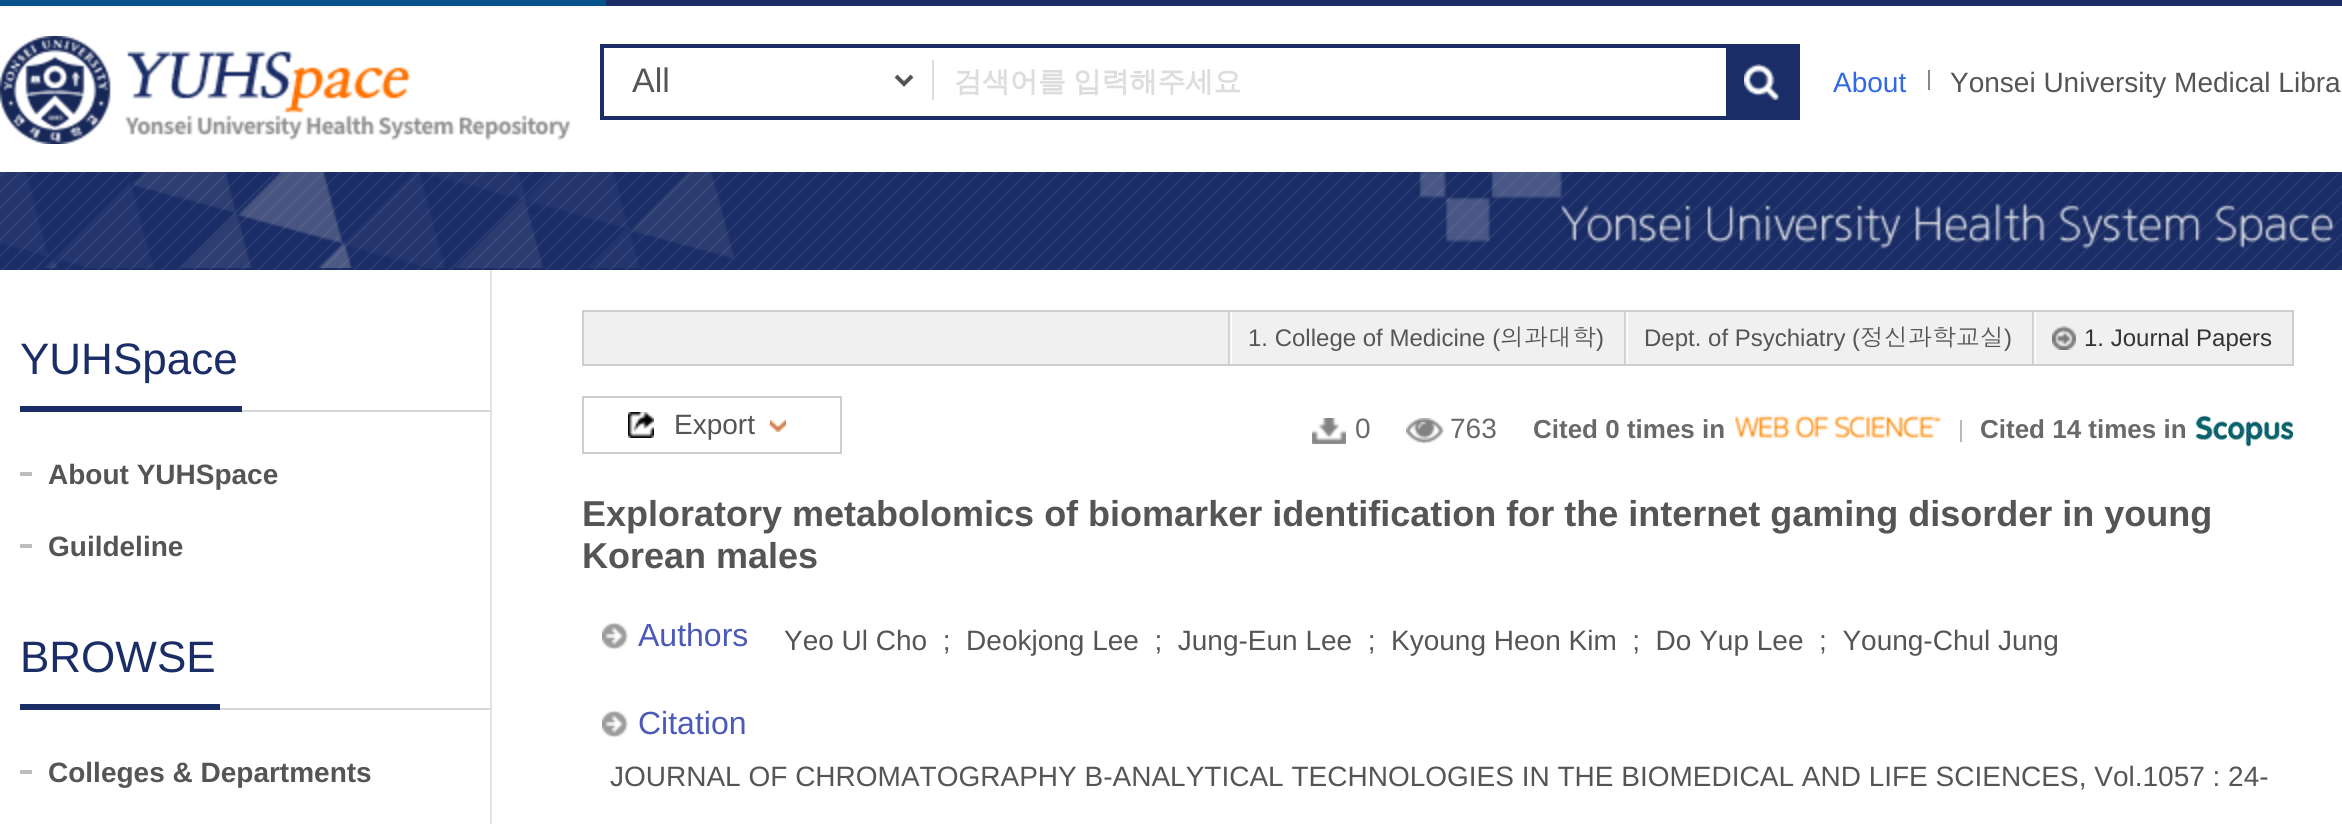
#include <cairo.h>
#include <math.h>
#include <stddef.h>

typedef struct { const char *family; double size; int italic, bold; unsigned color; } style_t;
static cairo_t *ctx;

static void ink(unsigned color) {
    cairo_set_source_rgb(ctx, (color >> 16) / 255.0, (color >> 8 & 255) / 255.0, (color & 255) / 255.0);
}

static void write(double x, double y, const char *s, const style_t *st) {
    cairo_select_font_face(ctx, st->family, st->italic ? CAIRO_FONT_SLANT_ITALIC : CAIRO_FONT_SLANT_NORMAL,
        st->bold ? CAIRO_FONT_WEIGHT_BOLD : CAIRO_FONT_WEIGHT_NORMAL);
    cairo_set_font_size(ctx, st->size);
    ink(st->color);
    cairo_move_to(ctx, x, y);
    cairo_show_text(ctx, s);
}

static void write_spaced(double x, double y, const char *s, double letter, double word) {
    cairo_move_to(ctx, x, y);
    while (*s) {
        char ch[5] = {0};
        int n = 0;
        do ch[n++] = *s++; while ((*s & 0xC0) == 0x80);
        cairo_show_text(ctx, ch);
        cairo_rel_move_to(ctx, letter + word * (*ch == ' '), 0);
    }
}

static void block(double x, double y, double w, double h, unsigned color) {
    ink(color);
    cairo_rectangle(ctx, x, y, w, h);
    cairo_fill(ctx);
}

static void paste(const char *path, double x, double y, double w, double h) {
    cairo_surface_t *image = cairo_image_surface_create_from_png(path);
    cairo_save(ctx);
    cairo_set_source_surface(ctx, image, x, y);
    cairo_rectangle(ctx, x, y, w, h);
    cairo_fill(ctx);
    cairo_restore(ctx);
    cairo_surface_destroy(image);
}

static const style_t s1 = {"Liberation Sans", 34, 0, 0, 0x555555};
static const style_t s2 = {"Liberation Sans", 28, 0, 0, 0x3068e5};
static const style_t s3 = {"Liberation Sans", 28, 0, 0, 0x555555};
static const style_t s4 = {"Liberation Sans", 44, 0, 0, 0x1a2d67};
static const style_t s5 = {"Liberation Sans", 28, 0, 1, 0x555555};
static const style_t s6 = {"Liberation Sans", 24, 0, 0, 0x555555};
static const style_t s7 = {"Dotum", 24, 0, 0, 0x555555};
static const style_t s8 = {"Liberation Sans", 24, 0, 0, 0x333333};
static const style_t s9 = {"Liberation Sans", 28, 0, 0, 0x696969};
static const style_t s10 = {"Liberation Sans", 26, 0, 1, 0x696969};
static const style_t s11 = {"Liberation Sans", 36, 0, 1, 0x555555};
static const style_t s12 = {"Liberation Sans", 32, 0, 0, 0x4b5ab8};

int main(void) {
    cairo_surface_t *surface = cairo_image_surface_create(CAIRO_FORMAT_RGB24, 2342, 824);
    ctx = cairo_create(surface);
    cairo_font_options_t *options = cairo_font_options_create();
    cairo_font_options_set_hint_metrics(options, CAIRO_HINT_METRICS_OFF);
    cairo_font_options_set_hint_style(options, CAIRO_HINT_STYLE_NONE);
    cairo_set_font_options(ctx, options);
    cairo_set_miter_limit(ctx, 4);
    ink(0xffffff);
    cairo_paint(ctx);
    block(0, 172, 2342, 98, 0x1a2d67);
    paste("pic1.png", 0, 172, 2342, 98);
    block(606, 0, 1736, 6, 0x1a2d67);
    block(0, 0, 606, 6, 0x06528a);
    paste("pic2.png", 0, 36, 570, 108);
    cairo_rectangle(ctx, 602, 46, 1196, 72);
    ink(0x1a2d67);
    cairo_set_line_width(ctx, 4);
    cairo_stroke(ctx);
    block(932, 60, 2, 40, 0xdddddd);
    cairo_new_path(ctx);
    cairo_move_to(ctx, 896, 76);
    cairo_line_to(ctx, 904, 84);
    cairo_line_to(ctx, 912, 76);
    ink(0x555555);
    cairo_stroke(ctx);
    write(632, 92, "All", &s1);
    cairo_select_font_face(ctx, "WenQuanYi Zen Hei", CAIRO_FONT_SLANT_NORMAL, CAIRO_FONT_WEIGHT_BOLD);
    cairo_set_font_size(ctx, 28);
    ink(0xdddddd);
    write_spaced(954, 91, "검색어를 입력해주세요", 0, -1);
    block(1726, 48, 70, 68, 0x1a2d67);
    paste("pic3.png", 1744, 64, 36, 36);
    block(1928, 70, 2, 20, 0x868686);
    write(1833, 92, "About", &s2);
    write(1950, 92, "Yonsei University Medical Libra", &s3);
    paste("pic4.png", 0, 172, 2335, 96);
    block(490, 270, 2, 554, 0xe3e3e3);
    block(242, 410, 250, 2, 0xd8d8d8);
    block(20, 406, 222, 6, 0x1a2d67);
    write(20, 374, "YUHSpace", &s4);
    block(20, 472, 12, 4, 0xbcbcbc);
    write(48, 484, "About YUHSpace", &s5);
    block(20, 544, 12, 4, 0xbcbcbc);
    write(48, 556, "Guildeline", &s5);
    block(220, 708, 272, 2, 0xd8d8d8);
    block(20, 704, 200, 6, 0x1a2d67);
    write(20, 672, "BROWSE", &s4);
    block(20, 770, 12, 4, 0xbcbcbc);
    write(48, 782, "Colleges & Departments", &s5);
    ink(0xf0f0f0);
    cairo_rectangle(ctx, 583, 311, 1710, 54);
    cairo_fill_preserve(ctx);
    ink(0xcecece);
    cairo_set_line_width(ctx, 2);
    cairo_stroke(ctx);
    paste("pic5.png", 1228, 312, 4, 52);
    write(1248, 346, "1. College of Medicine (", &s6);
    write(1500, 346, "의과대학", &s7);
    write(1596, 346, ")", &s6);
    paste("pic5.png", 1624, 312, 4, 52);
    write(1644, 346, "Dept. of Psychiatry (", &s6);
    write(1860, 346, "정신과학교실", &s7);
    write(2004, 346, ")", &s6);
    paste("pic5.png", 2032, 312, 4, 52);
    paste("pic6.png", 2052, 326, 24, 24);
    write(2084, 346, "1. Journal Papers", &s8);
    paste("pic7.png", 628, 412, 26, 26);
    cairo_rectangle(ctx, 583, 397, 258, 56);
    ink(0xcecece);
    cairo_stroke(ctx);
    paste("pic8.png", 770, 420, 16, 12);
    write(674, 434, "Export", &s3);
    paste("pic9.png", 1312, 418, 34, 26);
    write(1355, 438, "0", &s9);
    paste("pic10.png", 1406, 418, 38, 26);
    write(1450, 438, "763", &s9);
    block(1960, 420, 2, 22, 0xb8b8b8);
    write(1533, 438, "Cited 0 times in", &s10);
    paste("pic11.png", 1735, 415, 206, 25);
    write(1980, 438, "Cited 14 times in", &s10);
    paste("pic12.png", 2195, 415, 99, 32);
    write(582, 526, "Exploratory metabolomics of biomarker identification for the internet gaming disorder in young", &s11);
    write(582, 568, "Korean males", &s11);
    paste("pic13.png", 602, 622, 26, 28);
    write(638, 646, "Authors", &s12);
    write(784, 650, "Yeo Ul Cho  ;  Deokjong Lee  ;  Jung-Eun Lee  ;  Kyoung Heon Kim  ;  Do Yup Lee  ;  Young-Chul Jung", &s3);
    paste("pic13.png", 602, 710, 26, 28);
    write(638, 734, "Citation", &s12);
    write(610, 786, "JOURNAL OF CHROMATOGRAPHY B-ANALYTICAL TECHNOLOGIES IN THE BIOMEDICAL AND LIFE SCIENCES, Vol.1057 : 24-", &s3);
    cairo_surface_write_to_png(surface, "screenshot.png");
    cairo_font_options_destroy(options);
    cairo_destroy(ctx);
    cairo_surface_destroy(surface);
    return 0;
}
